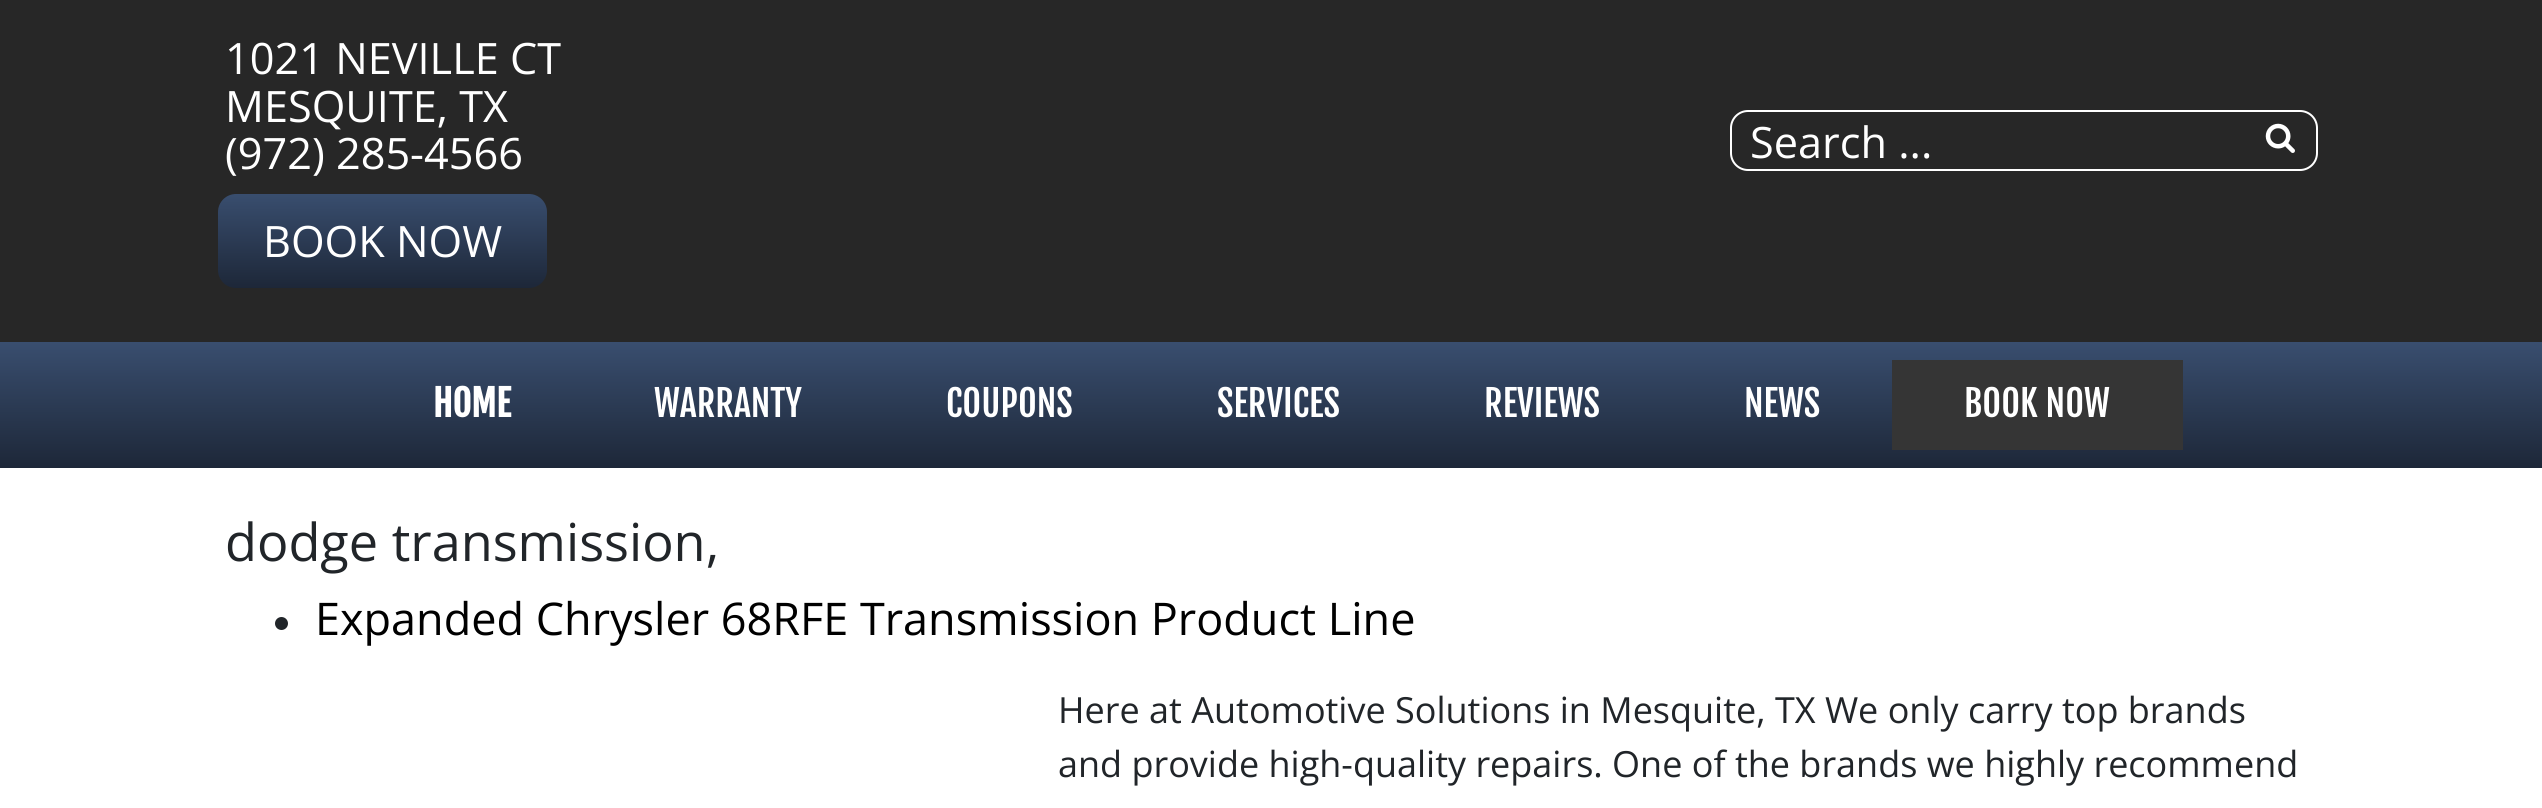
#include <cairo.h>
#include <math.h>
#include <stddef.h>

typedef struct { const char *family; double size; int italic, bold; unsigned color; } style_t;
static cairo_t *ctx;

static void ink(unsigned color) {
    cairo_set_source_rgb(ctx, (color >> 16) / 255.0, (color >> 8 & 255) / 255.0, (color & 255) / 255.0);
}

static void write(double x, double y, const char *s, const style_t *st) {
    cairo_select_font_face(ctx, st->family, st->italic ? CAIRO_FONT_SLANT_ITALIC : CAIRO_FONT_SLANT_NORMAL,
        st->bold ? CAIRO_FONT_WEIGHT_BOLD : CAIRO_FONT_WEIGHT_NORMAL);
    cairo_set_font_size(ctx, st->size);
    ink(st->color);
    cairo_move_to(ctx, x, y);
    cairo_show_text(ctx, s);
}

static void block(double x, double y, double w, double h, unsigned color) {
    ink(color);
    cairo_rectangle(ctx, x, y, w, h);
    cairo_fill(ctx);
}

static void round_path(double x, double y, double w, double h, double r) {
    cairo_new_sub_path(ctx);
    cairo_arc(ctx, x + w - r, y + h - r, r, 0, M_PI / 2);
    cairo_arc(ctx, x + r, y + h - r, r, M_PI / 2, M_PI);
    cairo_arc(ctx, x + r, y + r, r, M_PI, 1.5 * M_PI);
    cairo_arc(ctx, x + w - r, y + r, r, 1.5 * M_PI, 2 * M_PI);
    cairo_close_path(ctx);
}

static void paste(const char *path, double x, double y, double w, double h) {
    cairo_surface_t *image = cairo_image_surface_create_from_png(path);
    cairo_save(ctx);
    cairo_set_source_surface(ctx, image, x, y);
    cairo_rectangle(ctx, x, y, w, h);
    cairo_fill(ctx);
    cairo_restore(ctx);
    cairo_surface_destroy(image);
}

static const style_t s1 = {"Open Sans", 43.25, 0, 0, 0xffffff};
static const style_t s2 = {"Fjalla One", 36, 0, 1, 0xffffff};
static const style_t s3 = {"Fjalla One", 36, 0, 0, 0xffffff};
static const style_t s4 = {"Open Sans", 52.25, 0, 0, 0x212529};
static const style_t s5 = {"Open Sans", 45, 0, 0, 0x000000};
static const style_t s6 = {"Open Sans", 36, 0, 0, 0x212529};

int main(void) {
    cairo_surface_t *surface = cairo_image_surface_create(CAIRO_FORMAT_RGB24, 2542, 808);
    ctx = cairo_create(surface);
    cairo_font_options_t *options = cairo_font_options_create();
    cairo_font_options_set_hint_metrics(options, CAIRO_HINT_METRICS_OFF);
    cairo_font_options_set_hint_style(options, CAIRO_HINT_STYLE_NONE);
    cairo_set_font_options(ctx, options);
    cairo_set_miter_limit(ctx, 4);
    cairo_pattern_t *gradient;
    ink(0x272727);
    cairo_paint(ctx);
    write(225, 74, "1021 NEVILLE CT", &s1);
    write(225, 122, "MESQUITE, TX", &s1);
    write(225, 169, "(972) 285-4566", &s1);
    gradient = cairo_pattern_create_linear(383, 193, 383, 288);
    cairo_pattern_add_color_stop_rgba(gradient, 0, 0.224, 0.306, 0.435, 1);
    cairo_pattern_add_color_stop_rgba(gradient, 1, 0.114, 0.153, 0.22, 1);
    cairo_set_source(ctx, gradient);
    cairo_pattern_destroy(gradient);
    round_path(218, 194, 329, 94, 18);
    cairo_fill(ctx);
    write(263, 257, "BOOK NOW", &s1);
    round_path(1731, 111, 586, 59, 17);
    cairo_stroke(ctx);
    write(1750, 158, "Search ...", &s1);
    paste("pic1.png", 2265, 123, 30, 30);
    gradient = cairo_pattern_create_linear(1271, 342, 1271, 468);
    cairo_pattern_add_color_stop_rgba(gradient, 0, 0.224, 0.306, 0.435, 1);
    cairo_pattern_add_color_stop_rgba(gradient, 1, 0.114, 0.153, 0.22, 1);
    cairo_set_source(ctx, gradient);
    cairo_pattern_destroy(gradient);
    cairo_rectangle(ctx, 0, 342, 2542, 126);
    cairo_fill(ctx);
    write(433, 417, "HOME", &s2);
    write(654, 417, "WARRANTY", &s3);
    write(946, 417, "COUPONS", &s3);
    write(1217, 417, "SERVICES", &s3);
    write(1484, 417, "REVIEWS", &s3);
    write(1744, 417, "NEWS", &s3);
    block(1892, 360, 291, 90, 0x353535);
    write(1964, 417, "BOOK NOW", &s3);
    block(0, 468, 2542, 340, 0xffffff);
    write(225, 561, "dodge transmission,", &s4);
    cairo_new_path(ctx);
    cairo_arc(ctx, 281.5, 623.5, 6.5, 0, 2 * M_PI);
    cairo_fill(ctx);
    write(315, 635, "Expanded Chrysler 68RFE Transmission Product Line", &s5);
    write(1058, 723, "Here at Automotive Solutions in Mesquite, TX We only carry top brands", &s6);
    write(1058, 777, "and provide high-quality repairs. One of the brands we highly recommend", &s6);
    cairo_surface_write_to_png(surface, "screenshot.png");
    cairo_font_options_destroy(options);
    cairo_destroy(ctx);
    cairo_surface_destroy(surface);
    return 0;
}
